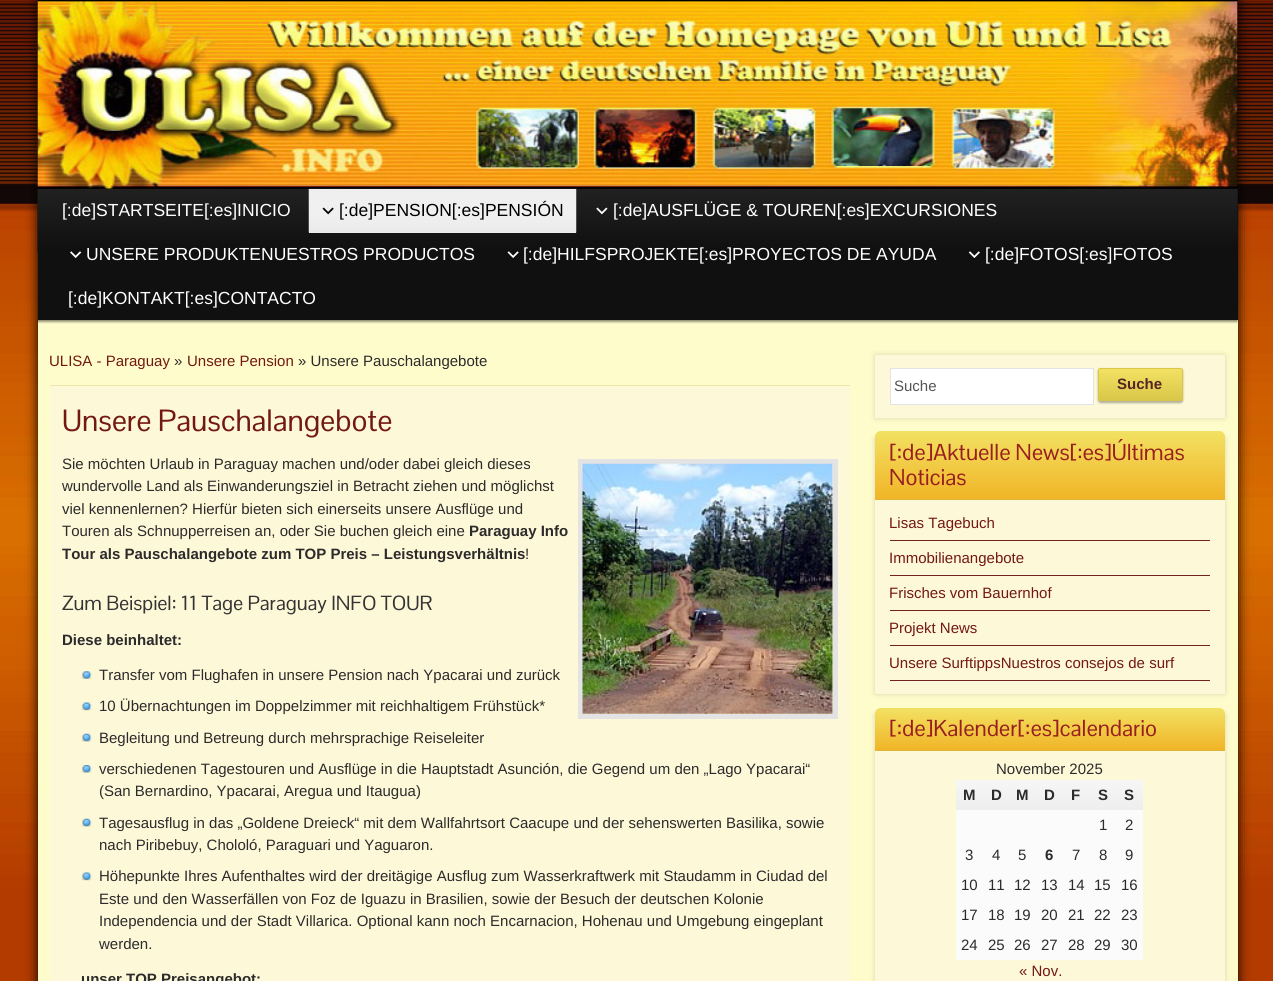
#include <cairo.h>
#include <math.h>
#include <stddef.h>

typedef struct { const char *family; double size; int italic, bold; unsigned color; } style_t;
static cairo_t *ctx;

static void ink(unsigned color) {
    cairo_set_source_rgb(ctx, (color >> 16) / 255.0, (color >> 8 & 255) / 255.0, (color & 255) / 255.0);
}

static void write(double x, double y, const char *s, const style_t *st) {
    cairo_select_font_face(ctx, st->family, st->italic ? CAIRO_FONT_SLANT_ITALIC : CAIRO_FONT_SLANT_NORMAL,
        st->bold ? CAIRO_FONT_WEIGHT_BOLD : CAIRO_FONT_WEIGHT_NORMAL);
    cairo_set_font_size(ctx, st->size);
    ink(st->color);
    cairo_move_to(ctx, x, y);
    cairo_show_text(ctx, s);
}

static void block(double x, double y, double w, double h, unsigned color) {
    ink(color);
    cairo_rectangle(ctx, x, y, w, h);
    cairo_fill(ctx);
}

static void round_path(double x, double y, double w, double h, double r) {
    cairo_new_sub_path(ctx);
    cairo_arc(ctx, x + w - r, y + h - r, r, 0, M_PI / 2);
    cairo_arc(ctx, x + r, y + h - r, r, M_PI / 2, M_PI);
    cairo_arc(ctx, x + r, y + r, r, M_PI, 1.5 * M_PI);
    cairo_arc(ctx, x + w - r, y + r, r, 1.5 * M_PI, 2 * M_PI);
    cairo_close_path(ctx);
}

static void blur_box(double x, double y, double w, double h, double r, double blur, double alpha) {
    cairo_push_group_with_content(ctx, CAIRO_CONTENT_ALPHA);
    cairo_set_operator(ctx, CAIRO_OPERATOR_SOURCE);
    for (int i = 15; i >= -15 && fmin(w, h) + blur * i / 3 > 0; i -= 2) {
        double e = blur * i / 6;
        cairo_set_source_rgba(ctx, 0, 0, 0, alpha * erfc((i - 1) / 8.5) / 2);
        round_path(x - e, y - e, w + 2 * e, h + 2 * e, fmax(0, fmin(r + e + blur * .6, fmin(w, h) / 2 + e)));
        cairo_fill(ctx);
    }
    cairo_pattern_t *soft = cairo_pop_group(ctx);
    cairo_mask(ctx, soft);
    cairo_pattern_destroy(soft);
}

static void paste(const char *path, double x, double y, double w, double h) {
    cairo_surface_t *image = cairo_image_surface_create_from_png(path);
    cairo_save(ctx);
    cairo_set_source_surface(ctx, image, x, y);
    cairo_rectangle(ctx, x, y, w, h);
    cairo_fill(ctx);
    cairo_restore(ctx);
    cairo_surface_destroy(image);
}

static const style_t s1 = {"Liberation Sans", 17.5, 0, 0, 0xffffff};
static const style_t s2 = {"Liberation Sans", 17.5, 0, 0, 0x000000};
static const style_t s3 = {"Liberation Sans", 15, 0, 0, 0x731911};
static const style_t s4 = {"Liberation Sans", 15, 0, 0, 0x2c2b2b};
static const style_t s5 = {"Pontano Sans", 30, 0, 0, 0x731911};
static const style_t s6 = {"Liberation Sans", 15, 0, 1, 0x2c2b2b};
static const style_t s7 = {"Pontano Sans", 20, 0, 0, 0x333333};
static const style_t s8 = {"Liberation Sans", 15, 0, 0, 0x555555};
static const style_t s9 = {"Liberation Sans", 15, 0, 1, 0x562424};
static const style_t s10 = {"Pontano Sans", 22.5, 0, 0, 0x981f1f};

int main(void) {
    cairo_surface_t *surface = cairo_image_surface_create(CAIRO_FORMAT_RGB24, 1273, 981);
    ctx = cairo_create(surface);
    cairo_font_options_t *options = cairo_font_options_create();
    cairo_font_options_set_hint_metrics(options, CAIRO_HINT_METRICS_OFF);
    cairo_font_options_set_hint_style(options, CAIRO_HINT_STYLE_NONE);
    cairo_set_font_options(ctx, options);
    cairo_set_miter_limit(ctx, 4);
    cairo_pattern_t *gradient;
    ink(0xffffff);
    cairo_paint(ctx);
    paste("pic1.png", 0, 0, 1273, 981);
    ink(0x000000);
    blur_box(38, 0, 1200, 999, 0, 6, 1);
    block(38, 0, 1200, 1, 0x000000);
    paste("pic2.png", 37, 1, 1201, 188);
    block(38, 189, 1200, 131, 0x101010);
    paste("pic3.png", 37, 188, 1201, 65);
    write(62, 216, "[:de]STARTSEITE[:es]INICIO", &s1);
    block(309, 232, 267, 1, 0xeeeeee);
    paste("pic4.png", 308, 188, 269, 45);
    paste("pic5.png", 322, 207, 12, 8);
    write(339, 216, "[:de]PENSION[:es]PENSIÓN", &s2);
    paste("pic6.png", 596, 207, 12, 8);
    write(613, 216, "[:de]AUSFLÜGE & TOUREN[:es]EXCURSIONES", &s1);
    paste("pic7.png", 70, 251, 12, 7);
    write(86, 260, "UNSERE PRODUKTENUESTROS PRODUCTOS", &s1);
    paste("pic8.png", 507, 251, 12, 7);
    write(523, 260, "[:de]HILFSPROJEKTE[:es]PROYECTOS DE AYUDA", &s1);
    paste("pic9.png", 968, 251, 12, 7);
    write(985, 260, "[:de]FOTOS[:es]FOTOS", &s1);
    write(68, 304, "[:de]KONTAKT[:es]CONTACTO", &s1);
    block(38, 320, 1200, 661, 0xfffccc);
    paste("pic10.png", 37, 320, 1201, 4);
    write(49, 366, "ULISA - Paraguay", &s3);
    write(174, 366, "»", &s4);
    write(187, 366, "Unsere Pension", &s3);
    write(298, 366, "» Unsere Pauschalangebote", &s4);
    block(50, 386, 800, 595, 0xfdf8d8);
    block(50, 385, 800, 1, 0xefe7a9);
    write(62, 431, "Unsere Pauschalangebote", &s5);
    write(62, 469, "Sie möchten Urlaub in Paraguay machen und/oder dabei gleich dieses", &s4);
    cairo_rectangle(ctx, 580.5, 461.5, 255, 255);
    ink(0xe3e3e3);
    cairo_set_line_width(ctx, 5);
    cairo_stroke(ctx);
    paste("pic11.png", 582, 463, 251, 251);
    write(62, 491, "wundervolle Land als Einwanderungsziel in Betracht ziehen und möglichst", &s4);
    write(62, 514, "viel kennenlernen? Hierfür bieten sich einerseits unsere Ausflüge und", &s4);
    write(62, 536, "Touren als Schnupperreisen an, oder Sie buchen gleich eine", &s4);
    write(469, 536, "Paraguay Info", &s6);
    write(62, 559, "Tour als Pauschalangebote zum TOP Preis – Leistungsverhältnis", &s6);
    write(525, 559, "!", &s4);
    write(62, 610, "Zum Beispiel: 11 Tage Paraguay INFO TOUR", &s7);
    write(62, 645, "Diese beinhaltet:", &s6);
    paste("pic12.png", 81, 671, 11, 8);
    write(99, 680, "Transfer vom Flughafen in unsere Pension nach Ypacarai und zurück", &s4);
    paste("pic13.png", 81, 702, 11, 9);
    write(99, 711, "10 Übernachtungen im Doppelzimmer mit reichhaltigem Frühstück*", &s4);
    paste("pic14.png", 81, 733, 11, 9);
    write(99, 743, "Begleitung und Betreung durch mehrsprachige Reiseleiter", &s4);
    paste("pic15.png", 81, 765, 11, 8);
    write(99, 774, "verschiedenen Tagestouren und Ausflüge in die Hauptstadt Asunción, die Gegend um den „Lago Ypacarai“", &s4);
    write(99, 796, "(San Bernardino, Ypacarai, Aregua und Itaugua)", &s4);
    paste("pic14.png", 81, 818, 11, 9);
    write(99, 828, "Tagesausflug in das „Goldene Dreieck“ mit dem Wallfahrtsort Caacupe und der sehenswerten Basilika, sowie", &s4);
    write(99, 850, "nach Piribebuy, Chololó, Paraguari und Yaguaron.", &s4);
    paste("pic13.png", 81, 872, 11, 9);
    write(99, 881, "Höhepunkte Ihres Aufenthaltes wird der dreitägige Ausflug zum Wasserkraftwerk mit Staudamm in Ciudad del", &s4);
    write(99, 904, "Este und den Wasserfällen von Foz de Iguazu in Brasilien, sowie der Besuch der deutschen Kolonie", &s4);
    write(99, 926, "Independencia und der Stadt Villarica. Optional kann noch Encarnacion, Hohenau und Umgebung eingeplant", &s4);
    write(99, 949, "werden.", &s4);
    write(81, 984, "unser TOP Preisangebot:", &s6);
    ink(0x000000);
    blur_box(875, 355, 350, 63, 0, 3, 0.15);
    block(875, 355, 350, 63, 0xfdf8d8);
    ink(0xffffff);
    cairo_rectangle(ctx, 890.5, 368.5, 203, 36);
    cairo_fill_preserve(ctx);
    ink(0xe3e3e3);
    cairo_set_line_width(ctx, 1);
    cairo_stroke(ctx);
    write(894, 391, "Suche", &s8);
    ink(0x000000);
    blur_box(1098, 369, 85, 34, 2.5, 1, 0.3);
    cairo_save(ctx);
    round_path(1098, 368, 85, 33, 2.5);
    cairo_clip(ctx);
    gradient = cairo_pattern_create_linear(1140, 369, 1140, 400);
    cairo_pattern_add_color_stop_rgba(gradient, 0, 0.949, 0.882, 0.388, 1);
    cairo_pattern_add_color_stop_rgba(gradient, 1, 0.847, 0.78, 0.286, 1);
    cairo_set_source(ctx, gradient);
    cairo_pattern_destroy(gradient);
    cairo_rectangle(ctx, 1098, 369, 85, 31);
    cairo_fill(ctx);
    cairo_restore(ctx);
    round_path(1098.5, 368.5, 84, 32, 2);
    ink(0xd8c749);
    cairo_stroke(ctx);
    write(1117, 389, "Suche", &s9);
    ink(0x000000);
    blur_box(875, 438, 350, 256, 0, 3, 0.15);
    block(875, 500, 350, 194, 0xfdf8d8);
    gradient = cairo_pattern_create_linear(1050, 431, 1050, 499);
    cairo_pattern_add_color_stop_rgba(gradient, 0, 0.949, 0.882, 0.388, 1);
    cairo_pattern_add_color_stop_rgba(gradient, 1, 0.945, 0.71, 0.153, 1);
    cairo_set_source(ctx, gradient);
    cairo_pattern_destroy(gradient);
    cairo_new_path(ctx);
    cairo_move_to(ctx, 881, 431);
    cairo_line_to(ctx, 1219, 431);
    cairo_curve_to(ctx, 1222.5, 431, 1225, 433.5, 1225, 437);
    cairo_line_to(ctx, 1225, 499);
    cairo_line_to(ctx, 875, 499);
    cairo_line_to(ctx, 875, 437);
    cairo_curve_to(ctx, 875, 433.5, 877.5, 431, 881, 431);
    cairo_close_path(ctx);
    cairo_fill(ctx);
    block(875, 499, 350, 1, 0xe0b638);
    write(889, 460, "[:de]Aktuelle News[:es]Últimas", &s10);
    write(889, 485, "Noticias", &s10);
    block(890, 540, 320, 1, 0x722222);
    write(889, 528, "Lisas Tagebuch", &s3);
    block(890, 575, 320, 1, 0x722222);
    write(889, 563, "Immobilienangebote", &s3);
    block(890, 610, 320, 1, 0x722222);
    write(889, 598, "Frisches vom Bauernhof", &s3);
    block(890, 645, 320, 1, 0x722222);
    write(889, 633, "Projekt News", &s3);
    block(890, 680, 320, 1, 0x722222);
    write(889, 668, "Unsere SurftippsNuestros consejos de surf", &s3);
    ink(0x000000);
    blur_box(875, 714, 350, 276, 0, 3, 0.15);
    block(875, 751, 350, 230, 0xfdf8d8);
    gradient = cairo_pattern_create_linear(1050, 708, 1050, 750);
    cairo_pattern_add_color_stop_rgba(gradient, 0, 0.949, 0.882, 0.388, 1);
    cairo_pattern_add_color_stop_rgba(gradient, 1, 0.945, 0.71, 0.153, 1);
    cairo_set_source(ctx, gradient);
    cairo_pattern_destroy(gradient);
    cairo_new_path(ctx);
    cairo_move_to(ctx, 881, 708);
    cairo_line_to(ctx, 1219, 708);
    cairo_curve_to(ctx, 1222.5, 708, 1225, 710.5, 1225, 714);
    cairo_line_to(ctx, 1225, 750);
    cairo_line_to(ctx, 875, 750);
    cairo_line_to(ctx, 875, 714);
    cairo_curve_to(ctx, 875, 710.5, 877.5, 708, 881, 708);
    cairo_close_path(ctx);
    cairo_fill(ctx);
    block(875, 750, 350, 1, 0xe0b638);
    write(889, 736, "[:de]Kalender[:es]calendario", &s10);
    write(996, 774, "November 2025", &s4);
    gradient = cairo_pattern_create_linear(969, 780, 969, 810);
    cairo_pattern_add_color_stop_rgba(gradient, 0, 0.965, 0.965, 0.965, 1);
    cairo_pattern_add_color_stop_rgba(gradient, 1, 0.933, 0.933, 0.933, 1);
    cairo_set_source(ctx, gradient);
    cairo_pattern_destroy(gradient);
    cairo_rectangle(ctx, 956, 780, 27, 30);
    cairo_fill(ctx);
    write(963, 800, "M", &s6);
    gradient = cairo_pattern_create_linear(996, 780, 996, 810);
    cairo_pattern_add_color_stop_rgba(gradient, 0, 0.965, 0.965, 0.965, 1);
    cairo_pattern_add_color_stop_rgba(gradient, 1, 0.933, 0.933, 0.933, 1);
    cairo_set_source(ctx, gradient);
    cairo_pattern_destroy(gradient);
    cairo_rectangle(ctx, 983, 780, 26, 30);
    cairo_fill(ctx);
    write(991, 800, "D", &s6);
    gradient = cairo_pattern_create_linear(1023, 780, 1023, 810);
    cairo_pattern_add_color_stop_rgba(gradient, 0, 0.965, 0.965, 0.965, 1);
    cairo_pattern_add_color_stop_rgba(gradient, 1, 0.933, 0.933, 0.933, 1);
    cairo_set_source(ctx, gradient);
    cairo_pattern_destroy(gradient);
    cairo_rectangle(ctx, 1009, 780, 27, 30);
    cairo_fill(ctx);
    write(1016, 800, "M", &s6);
    gradient = cairo_pattern_create_linear(1049, 780, 1049, 810);
    cairo_pattern_add_color_stop_rgba(gradient, 0, 0.965, 0.965, 0.965, 1);
    cairo_pattern_add_color_stop_rgba(gradient, 1, 0.933, 0.933, 0.933, 1);
    cairo_set_source(ctx, gradient);
    cairo_pattern_destroy(gradient);
    cairo_rectangle(ctx, 1036, 780, 27, 30);
    cairo_fill(ctx);
    write(1044, 800, "D", &s6);
    gradient = cairo_pattern_create_linear(1076, 780, 1076, 810);
    cairo_pattern_add_color_stop_rgba(gradient, 0, 0.965, 0.965, 0.965, 1);
    cairo_pattern_add_color_stop_rgba(gradient, 1, 0.933, 0.933, 0.933, 1);
    cairo_set_source(ctx, gradient);
    cairo_pattern_destroy(gradient);
    cairo_rectangle(ctx, 1063, 780, 27, 30);
    cairo_fill(ctx);
    write(1071, 800, "F", &s6);
    gradient = cairo_pattern_create_linear(1103, 780, 1103, 810);
    cairo_pattern_add_color_stop_rgba(gradient, 0, 0.965, 0.965, 0.965, 1);
    cairo_pattern_add_color_stop_rgba(gradient, 1, 0.933, 0.933, 0.933, 1);
    cairo_set_source(ctx, gradient);
    cairo_pattern_destroy(gradient);
    cairo_rectangle(ctx, 1090, 780, 26, 30);
    cairo_fill(ctx);
    write(1098, 800, "S", &s6);
    gradient = cairo_pattern_create_linear(1129, 780, 1129, 810);
    cairo_pattern_add_color_stop_rgba(gradient, 0, 0.965, 0.965, 0.965, 1);
    cairo_pattern_add_color_stop_rgba(gradient, 1, 0.933, 0.933, 0.933, 1);
    cairo_set_source(ctx, gradient);
    cairo_pattern_destroy(gradient);
    cairo_rectangle(ctx, 1116, 780, 27, 30);
    cairo_fill(ctx);
    write(1124, 800, "S", &s6);
    block(956, 810, 187, 150, 0xfbfbfb);
    write(1099, 830, "1", &s4);
    write(1125, 830, "2", &s4);
    write(965, 860, "3", &s4);
    write(992, 860, "4", &s4);
    write(1018, 860, "5", &s4);
    write(1045, 860, "6", &s6);
    write(1072, 860, "7", &s4);
    write(1099, 860, "8", &s4);
    write(1125, 860, "9", &s4);
    write(961, 890, "10", &s4);
    write(988, 890, "11", &s4);
    write(1014, 890, "12", &s4);
    write(1041, 890, "13", &s4);
    write(1068, 890, "14", &s4);
    write(1094, 890, "15", &s4);
    write(1121, 890, "16", &s4);
    write(961, 920, "17", &s4);
    write(988, 920, "18", &s4);
    write(1014, 920, "19", &s4);
    write(1041, 920, "20", &s4);
    write(1068, 920, "21", &s4);
    write(1094, 920, "22", &s4);
    write(1121, 920, "23", &s4);
    write(961, 950, "24", &s4);
    write(988, 950, "25", &s4);
    write(1014, 950, "26", &s4);
    write(1041, 950, "27", &s4);
    write(1068, 950, "28", &s4);
    write(1094, 950, "29", &s4);
    write(1121, 950, "30", &s4);
    write(1019, 976, "« Nov.", &s3);
    cairo_surface_write_to_png(surface, "screenshot.png");
    cairo_font_options_destroy(options);
    cairo_destroy(ctx);
    cairo_surface_destroy(surface);
    return 0;
}
